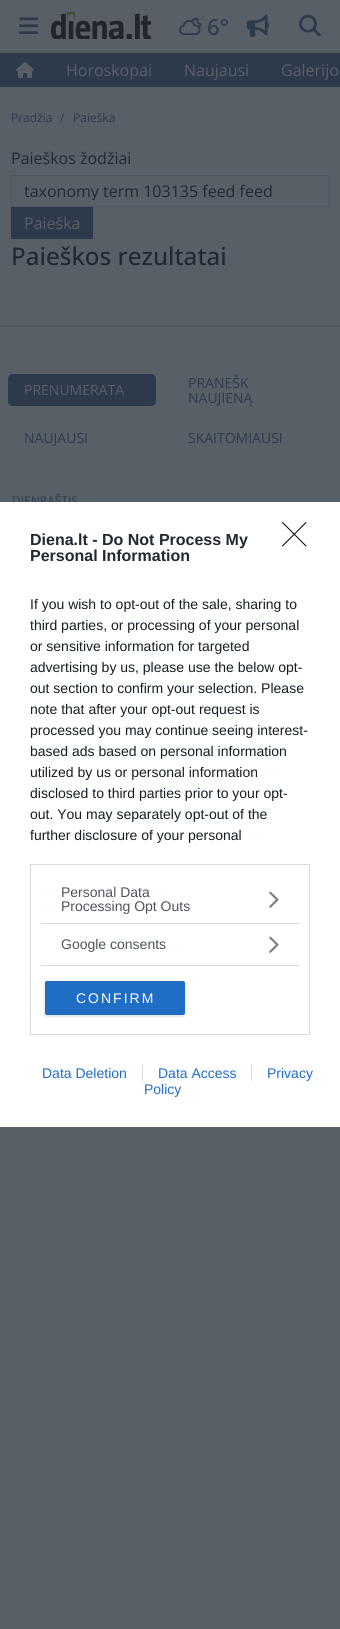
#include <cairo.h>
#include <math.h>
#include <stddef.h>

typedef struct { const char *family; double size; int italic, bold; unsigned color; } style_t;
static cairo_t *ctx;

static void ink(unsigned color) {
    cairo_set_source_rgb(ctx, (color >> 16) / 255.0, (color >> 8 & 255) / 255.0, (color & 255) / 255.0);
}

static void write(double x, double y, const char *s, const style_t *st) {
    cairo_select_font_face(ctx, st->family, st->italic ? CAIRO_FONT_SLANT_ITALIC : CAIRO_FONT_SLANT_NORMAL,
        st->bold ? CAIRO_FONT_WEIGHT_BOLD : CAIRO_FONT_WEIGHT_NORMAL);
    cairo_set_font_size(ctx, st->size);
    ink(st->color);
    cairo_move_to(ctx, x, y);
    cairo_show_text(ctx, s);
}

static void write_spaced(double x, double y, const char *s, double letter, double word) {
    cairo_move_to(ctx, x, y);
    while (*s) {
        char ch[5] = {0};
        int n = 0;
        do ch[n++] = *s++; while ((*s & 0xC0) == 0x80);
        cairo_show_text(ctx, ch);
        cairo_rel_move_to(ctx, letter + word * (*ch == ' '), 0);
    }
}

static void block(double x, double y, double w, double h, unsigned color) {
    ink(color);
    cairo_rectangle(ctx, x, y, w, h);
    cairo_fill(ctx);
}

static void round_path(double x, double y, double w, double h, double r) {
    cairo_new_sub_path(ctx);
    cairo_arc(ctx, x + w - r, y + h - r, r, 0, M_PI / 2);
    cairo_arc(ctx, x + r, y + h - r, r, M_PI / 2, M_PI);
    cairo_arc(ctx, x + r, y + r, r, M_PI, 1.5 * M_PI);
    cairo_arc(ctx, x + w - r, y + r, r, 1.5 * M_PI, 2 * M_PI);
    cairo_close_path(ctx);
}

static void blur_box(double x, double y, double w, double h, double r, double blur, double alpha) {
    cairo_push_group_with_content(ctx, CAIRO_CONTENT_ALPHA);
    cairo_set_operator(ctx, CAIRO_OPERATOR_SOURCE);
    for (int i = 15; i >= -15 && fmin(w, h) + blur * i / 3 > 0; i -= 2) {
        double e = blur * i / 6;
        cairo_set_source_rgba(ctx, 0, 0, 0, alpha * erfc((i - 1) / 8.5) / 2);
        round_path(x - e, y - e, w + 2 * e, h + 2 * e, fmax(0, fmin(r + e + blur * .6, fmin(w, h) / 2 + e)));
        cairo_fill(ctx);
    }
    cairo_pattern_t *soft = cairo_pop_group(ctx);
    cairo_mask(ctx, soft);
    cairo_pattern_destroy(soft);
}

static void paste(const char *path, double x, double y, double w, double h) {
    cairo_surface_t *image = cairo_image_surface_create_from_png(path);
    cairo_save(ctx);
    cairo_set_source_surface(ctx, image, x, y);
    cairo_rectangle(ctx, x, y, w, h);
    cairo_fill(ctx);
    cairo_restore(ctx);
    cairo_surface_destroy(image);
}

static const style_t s1 = {"Open Sans Medium", 22, 0, 0, 0x2d3a4b};
static const style_t s2 = {"Open Sans", 16, 0, 0, 0x595f67};
static const style_t s3 = {"Open Sans", 12, 0, 0, 0x2d3a4b};
static const style_t s4 = {"Open Sans", 12, 0, 0, 0x2f363f};
static const style_t s5 = {"Open Sans", 16, 0, 0, 0x212831};
static const style_t s6 = {"Open Sans Medium", 24.25, 0, 0, 0x212831};
static const style_t s7 = {"Open Sans", 14, 0, 0, 0x595f67};
static const style_t s8 = {"Open Sans", 14, 0, 0, 0x2d3a4b};
static const style_t s9 = {"Liberation Sans", 16, 0, 1, 0x212831};
static const style_t s10 = {"Liberation Sans", 14, 0, 0, 0x141e23};
static const style_t s11 = {"Liberation Sans", 14, 0, 0, 0x4d545d};
static const style_t s12 = {"Liberation Sans", 14, 0, 0, 0x206dc5};

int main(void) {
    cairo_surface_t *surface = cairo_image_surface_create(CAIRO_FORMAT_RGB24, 340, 1629);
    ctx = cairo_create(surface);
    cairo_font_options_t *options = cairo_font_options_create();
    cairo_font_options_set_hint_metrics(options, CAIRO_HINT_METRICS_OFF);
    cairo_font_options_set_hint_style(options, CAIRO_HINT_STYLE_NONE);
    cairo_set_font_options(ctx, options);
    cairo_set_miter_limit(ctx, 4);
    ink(0x595f67);
    cairo_paint(ctx);
    block(0, 51, 340, 2, 0x525860);
    paste("pic1.png", 19, 17, 20, 17);
    paste("pic2.png", 51, 12, 100, 27);
    paste("pic3.png", 179, 17, 23, 18);
    write(207, 35, "6°", &s1);
    paste("pic4.png", 247, 14, 22, 23);
    paste("pic5.png", 299, 14, 22, 23);
    block(0, 53, 340, 34, 0x2d3a4b);
    paste("pic6.png", 16, 62, 18, 16);
    write(66, 76, "Horoskopai", &s2);
    write(184, 76, "Naujausi", &s2);
    write(281, 76, "Galerijo", &s2);
    write(11, 122, "Pradžia", &s3);
    write(60, 122, "/", &s4);
    write(73, 122, "Paieška", &s3);
    write(11, 164, "Paieškos žodžiai", &s5);
    cairo_rectangle(ctx, 11.5, 175.5, 317, 31);
    ink(0x505761);
    cairo_set_line_width(ctx, 1);
    cairo_stroke(ctx);
    cairo_save(ctx);
    cairo_rectangle(ctx, 24, 182, 277, 18);
    cairo_clip(ctx);
    write(24, 197, "taxonomy term 103135 feed feed", &s5);
    cairo_restore(ctx);
    block(11, 207, 82, 32, 0x2d3a4b);
    write(24, 229, "Paieška", &s2);
    write(11, 265, "Paieškos rezultatai", &s6);
    block(0, 325, 340, 2, 0x525860);
    ink(0x2d3a4b);
    round_path(8, 374, 148, 32, 5);
    cairo_fill(ctx);
    write(24, 395, "PRENUMERATA", &s7);
    write(188, 388, "PRANEŠK", &s8);
    write(188, 403, "NAUJIENĄ", &s8);
    write(24, 443, "NAUJAUSI", &s8);
    write(188, 443, "SKAITOMIAUSI", &s8);
    write(12, 505, "DIENRAŠTIS", &s3);
    block(0, 502, 340, 625, 0xffffff);
    cairo_new_path(ctx);
    cairo_move_to(ctx, 282.5, 522.5);
    cairo_line_to(ctx, 306, 546);
    cairo_move_to(ctx, 306, 522.5);
    cairo_line_to(ctx, 282.5, 546);
    ink(0x000000);
    cairo_set_line_cap(ctx, CAIRO_LINE_CAP_ROUND);
    cairo_set_line_join(ctx, CAIRO_LINE_JOIN_ROUND);
    cairo_stroke(ctx);
    write(30, 545, "Diena.lt - Do Not Process My", &s9);
    write(30, 561, "Personal Information", &s9);
    write(30, 609, "If you wish to opt-out of the sale, sharing to", &s10);
    write(30, 630, "third parties, or processing of your personal", &s10);
    write(30, 651, "or sensitive information for targeted", &s10);
    write(30, 672, "advertising by us, please use the below opt-", &s10);
    write(30, 693, "out section to confirm your selection. Please", &s10);
    write(30, 714, "note that after your opt-out request is", &s10);
    write(30, 735, "processed you may continue seeing interest-", &s10);
    write(30, 756, "based ads based on personal information", &s10);
    write(30, 777, "utilized by us or personal information", &s10);
    write(30, 798, "disclosed to third parties prior to your opt-", &s10);
    write(30, 819, "out. You may separately opt-out of the", &s10);
    write(30, 840, "further disclosure of your personal", &s10);
    cairo_rectangle(ctx, 30.5, 864.5, 279, 170);
    ink(0xd8d8d8);
    cairo_set_line_cap(ctx, CAIRO_LINE_CAP_BUTT);
    cairo_set_line_join(ctx, CAIRO_LINE_JOIN_MITER);
    cairo_stroke(ctx);
    block(41, 923, 258, 1, 0xd8d8d8);
    write(61, 897, "Personal Data", &s11);
    write(61, 911, "Processing Opt Outs", &s11);
    paste("pic7.png", 269, 891, 10, 17);
    block(41, 965, 258, 1, 0xd8d8d8);
    write(61, 949, "Google consents", &s11);
    paste("pic7.png", 269, 936, 10, 17);
    ink(0x000000);
    blur_box(44, 981, 142, 36, 3, 0.5, 0.1);
    ink(0x206dc5);
    round_path(45, 981, 140, 34, 2);
    cairo_fill(ctx);
    ink(0xffffff);
    write_spaced(76, 1003, "CONFIRM", 2, 0);
    write(42, 1078, "Data Deletion", &s12);
    write(158, 1078, "Data Access", &s12);
    block(142, 1065, 1, 16, 0xd8d8d8);
    write(267, 1078, "Privacy", &s12);
    block(251, 1065, 1, 16, 0xd8d8d8);
    write(144, 1094, "Policy", &s12);
    cairo_surface_write_to_png(surface, "screenshot.png");
    cairo_font_options_destroy(options);
    cairo_destroy(ctx);
    cairo_surface_destroy(surface);
    return 0;
}
